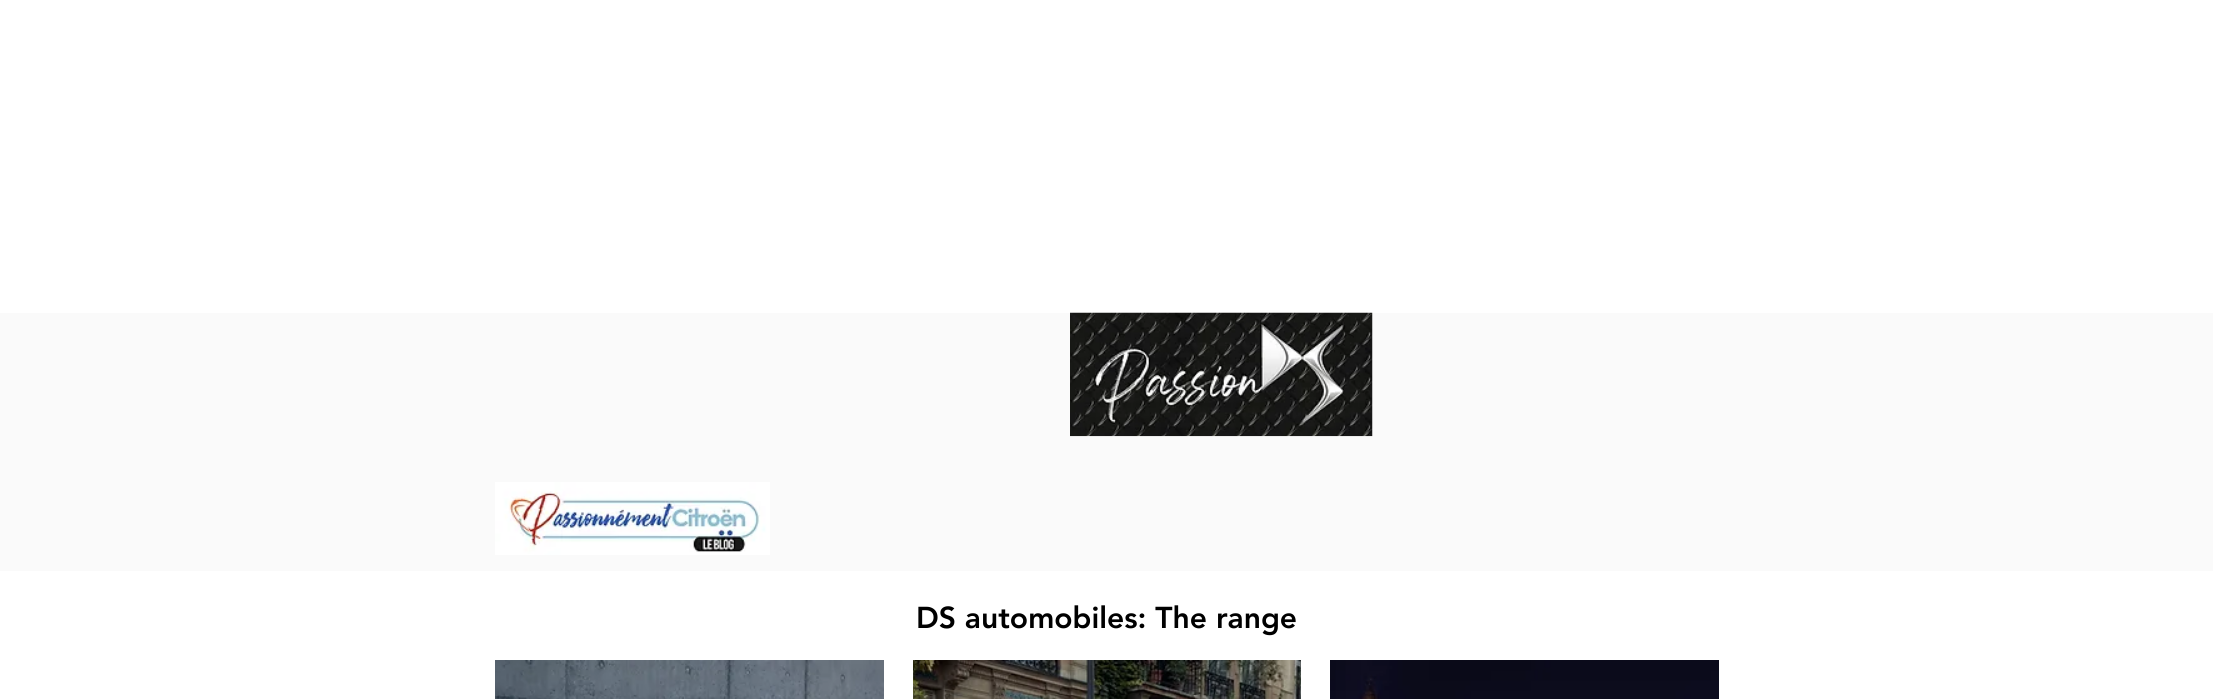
#include <cairo.h>
#include <math.h>
#include <stddef.h>

typedef struct { const char *family; double size; int italic, bold; unsigned color; } style_t;
static cairo_t *ctx;

static void ink(unsigned color) {
    cairo_set_source_rgb(ctx, (color >> 16) / 255.0, (color >> 8 & 255) / 255.0, (color & 255) / 255.0);
}

static void write(double x, double y, const char *s, const style_t *st) {
    cairo_select_font_face(ctx, st->family, st->italic ? CAIRO_FONT_SLANT_ITALIC : CAIRO_FONT_SLANT_NORMAL,
        st->bold ? CAIRO_FONT_WEIGHT_BOLD : CAIRO_FONT_WEIGHT_NORMAL);
    cairo_set_font_size(ctx, st->size);
    ink(st->color);
    cairo_move_to(ctx, x, y);
    cairo_show_text(ctx, s);
}

static void block(double x, double y, double w, double h, unsigned color) {
    ink(color);
    cairo_rectangle(ctx, x, y, w, h);
    cairo_fill(ctx);
}

static void paste(const char *path, double x, double y, double w, double h) {
    cairo_surface_t *image = cairo_image_surface_create_from_png(path);
    cairo_save(ctx);
    cairo_set_source_surface(ctx, image, x, y);
    cairo_rectangle(ctx, x, y, w, h);
    cairo_fill(ctx);
    cairo_restore(ctx);
    cairo_surface_destroy(image);
}

static const style_t s1 = {"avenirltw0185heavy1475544 Black", 30, 0, 0, 0x000000};

int main(void) {
    cairo_surface_t *surface = cairo_image_surface_create(CAIRO_FORMAT_RGB24, 2213, 699);
    ctx = cairo_create(surface);
    cairo_font_options_t *options = cairo_font_options_create();
    cairo_font_options_set_hint_metrics(options, CAIRO_HINT_METRICS_OFF);
    cairo_font_options_set_hint_style(options, CAIRO_HINT_STYLE_NONE);
    cairo_set_font_options(ctx, options);
    cairo_set_miter_limit(ctx, 4);
    ink(0xffffff);
    cairo_paint(ctx);
    block(0, 313, 2213, 258, 0xfafafa);
    paste("pic1.png", 1070, 312, 303, 125);
    paste("pic2.png", 495, 482, 275, 73);
    write(916, 628, "DS automobiles: The range", &s1);
    paste("pic3.png", 495, 660, 389, 39);
    paste("pic4.png", 913, 660, 388, 39);
    paste("pic5.png", 1330, 660, 389, 39);
    cairo_surface_write_to_png(surface, "screenshot.png");
    cairo_font_options_destroy(options);
    cairo_destroy(ctx);
    cairo_surface_destroy(surface);
    return 0;
}
